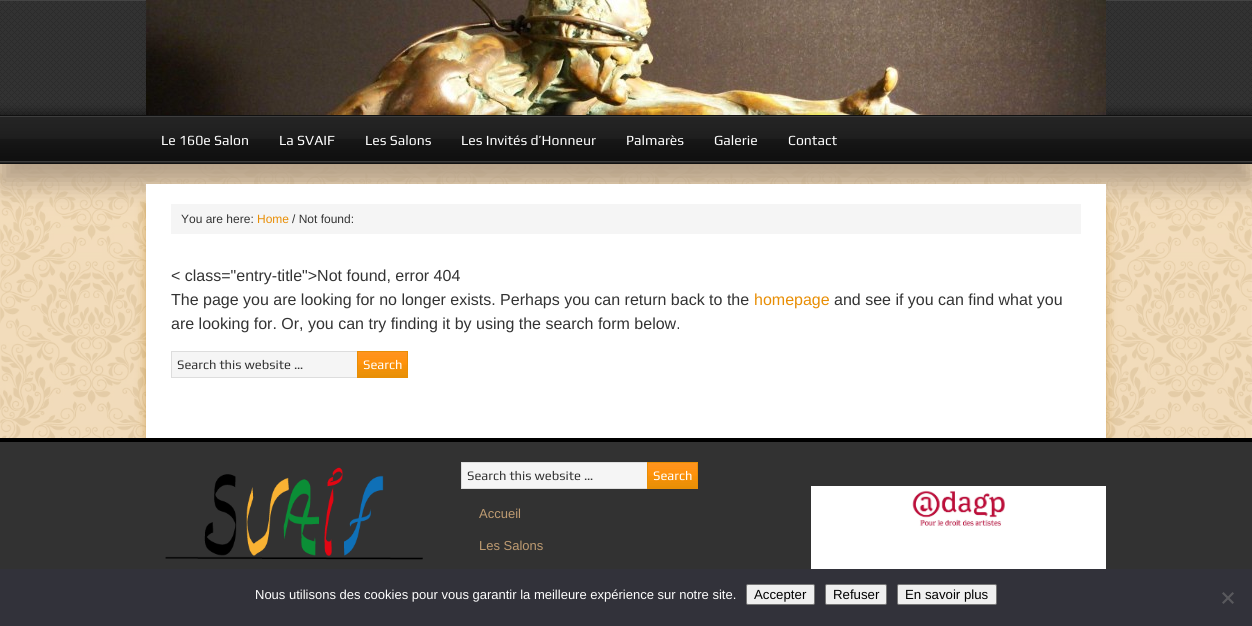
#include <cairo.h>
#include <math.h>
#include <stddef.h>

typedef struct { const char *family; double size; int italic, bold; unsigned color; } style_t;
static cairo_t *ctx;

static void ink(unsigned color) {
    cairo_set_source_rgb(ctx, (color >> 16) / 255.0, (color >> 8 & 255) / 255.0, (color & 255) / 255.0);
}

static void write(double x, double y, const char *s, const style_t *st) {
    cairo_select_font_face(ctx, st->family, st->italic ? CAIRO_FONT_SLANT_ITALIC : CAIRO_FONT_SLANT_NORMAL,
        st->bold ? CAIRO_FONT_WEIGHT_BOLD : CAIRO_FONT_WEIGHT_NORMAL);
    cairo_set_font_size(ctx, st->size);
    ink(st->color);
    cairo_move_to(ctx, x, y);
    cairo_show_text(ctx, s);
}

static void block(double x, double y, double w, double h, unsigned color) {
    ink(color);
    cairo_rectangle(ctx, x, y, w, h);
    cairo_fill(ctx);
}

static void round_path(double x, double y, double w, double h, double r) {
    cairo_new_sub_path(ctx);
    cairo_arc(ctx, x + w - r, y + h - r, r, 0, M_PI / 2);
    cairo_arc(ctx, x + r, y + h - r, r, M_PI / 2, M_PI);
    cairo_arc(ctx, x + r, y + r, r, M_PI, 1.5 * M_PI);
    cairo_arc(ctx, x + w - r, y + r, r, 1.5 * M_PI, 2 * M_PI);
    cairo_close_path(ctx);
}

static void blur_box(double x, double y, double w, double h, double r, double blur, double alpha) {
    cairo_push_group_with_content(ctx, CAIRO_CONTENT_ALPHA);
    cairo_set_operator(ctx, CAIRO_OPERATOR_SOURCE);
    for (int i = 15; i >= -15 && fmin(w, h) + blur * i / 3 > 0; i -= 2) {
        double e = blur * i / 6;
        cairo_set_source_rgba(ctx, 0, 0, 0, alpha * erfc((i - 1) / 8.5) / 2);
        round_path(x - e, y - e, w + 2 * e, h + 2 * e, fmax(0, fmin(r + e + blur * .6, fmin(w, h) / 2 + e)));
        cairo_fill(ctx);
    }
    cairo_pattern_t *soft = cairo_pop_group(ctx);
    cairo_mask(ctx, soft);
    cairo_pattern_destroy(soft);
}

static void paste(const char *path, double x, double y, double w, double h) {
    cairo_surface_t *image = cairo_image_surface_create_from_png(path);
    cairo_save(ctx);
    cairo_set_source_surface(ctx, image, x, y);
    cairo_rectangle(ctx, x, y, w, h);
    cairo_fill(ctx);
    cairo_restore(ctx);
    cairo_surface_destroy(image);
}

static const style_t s1 = {"Play", 14, 0, 0, 0xffffff};
static const style_t s2 = {"Liberation Sans", 12, 0, 0, 0x333333};
static const style_t s3 = {"Liberation Sans", 12, 0, 0, 0xe88e05};
static const style_t s4 = {"Liberation Sans", 16, 0, 0, 0x333333};
static const style_t s5 = {"Liberation Sans", 16, 0, 0, 0xe88e05};
static const style_t s6 = {"Play", 13, 0, 0, 0x333333};
static const style_t s7 = {"Play", 13, 0, 0, 0xffffff};
static const style_t s8 = {"Liberation Sans", 13, 0, 0, 0xbe9b71};
static const style_t s9 = {"Liberation Sans", 13, 0, 0, 0xffffff};
static const style_t s10 = {"Liberation Sans", 13.25, 0, 0, 0x000000};

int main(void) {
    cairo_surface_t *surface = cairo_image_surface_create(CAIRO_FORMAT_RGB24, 1252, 626);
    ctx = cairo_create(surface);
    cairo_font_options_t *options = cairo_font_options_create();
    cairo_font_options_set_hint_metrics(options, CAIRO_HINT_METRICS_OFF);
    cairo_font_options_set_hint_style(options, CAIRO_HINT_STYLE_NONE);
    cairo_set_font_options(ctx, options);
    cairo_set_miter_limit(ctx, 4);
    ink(0xffffff);
    cairo_paint(ctx);
    paste("pic1.png", 0, 164, 1252, 274);
    paste("pic2.png", 0, 0, 1252, 115);
    paste("pic3.png", 146, 0, 960, 115);
    ink(0x000000);
    blur_box(0, 135, 1252, 49, 0, 12.5, 1);
    paste("pic4.png", 0, 116, 1252, 47);
    block(0, 115, 1252, 1, 0x111111);
    block(0, 163, 1252, 1, 0x111111);
    write(161, 145, "Le 160e Salon", &s1);
    write(279, 145, "La SVAIF", &s1);
    write(365, 145, "Les Salons", &s1);
    write(461, 145, "Les Invités d’Honneur", &s1);
    write(626, 145, "Palmarès", &s1);
    write(714, 145, "Galerie", &s1);
    write(788, 145, "Contact", &s1);
    cairo_set_source_rgba(ctx, 1, 0.89, 0.757, 0.7);
    cairo_rectangle(ctx, 0, 164, 1252, 274);
    cairo_fill(ctx);
    ink(0xb27404);
    blur_box(146, 204, 960, 254, 0, 5, 0.49);
    block(146, 184, 960, 254, 0xffffff);
    block(171, 204, 910, 30, 0xf5f5f5);
    write(181, 223, "You are here:", &s2);
    write(257, 223, "Home", &s3);
    write(292, 223, "/ Not found:", &s2);
    write(171, 281, "< class=\"entry-title\">Not found, error 404", &s4);
    write(171, 305, "The page you are looking for no longer exists. Perhaps you can return back to the", &s4);
    write(754, 305, "homepage", &s5);
    write(834, 305, "and see if you can find what you", &s4);
    write(171, 329, "are looking for. Or, you can try finding it by using the search form below.", &s4);
    block(172, 352, 185, 25, 0xf5f5f5);
    cairo_rectangle(ctx, 171.5, 351.5, 191, 26);
    ink(0xdddddd);
    cairo_set_line_width(ctx, 1);
    cairo_stroke(ctx);
    write(177, 369, "Search this website …", &s6);
    paste("pic5.png", 358, 352, 49, 25);
    cairo_rectangle(ctx, 357.5, 351.5, 50, 26);
    ink(0xe88e05);
    cairo_stroke(ctx);
    write(363, 369, "Search", &s7);
    block(0, 442, 1252, 127, 0x323232);
    block(0, 438, 1252, 4, 0x000000);
    paste("pic6.png", 165, 467, 258, 93);
    block(462, 463, 185, 25, 0xf5f5f5);
    cairo_rectangle(ctx, 461.5, 462.5, 191, 26);
    ink(0xdddddd);
    cairo_stroke(ctx);
    write(467, 480, "Search this website …", &s6);
    paste("pic5.png", 648, 463, 49, 25);
    cairo_rectangle(ctx, 647.5, 462.5, 50, 26);
    ink(0xe88e05);
    cairo_stroke(ctx);
    write(653, 480, "Search", &s7);
    write(479, 518, "Accueil", &s8);
    write(479, 550, "Les Salons", &s8);
    block(811, 486, 295, 83, 0xffffff);
    paste("pic7.png", 912, 490, 93, 36);
    block(0, 569, 1252, 57, 0x32323a);
    write(255, 599, "Nous utilisons des cookies pour vous garantir la meilleure expérience sur notre site.", &s9);
    ink(0xefefef);
    round_path(746.5, 584.5, 68, 20, 1.5);
    cairo_fill_preserve(ctx);
    ink(0x767676);
    cairo_stroke(ctx);
    write(754, 599, "Accepter", &s10);
    ink(0xefefef);
    round_path(825.5, 584.5, 61, 20, 1.5);
    cairo_fill_preserve(ctx);
    ink(0x767676);
    cairo_stroke(ctx);
    write(833, 599, "Refuser", &s10);
    ink(0xefefef);
    round_path(897.5, 584.5, 99, 20, 1.5);
    cairo_fill_preserve(ctx);
    ink(0x767676);
    cairo_stroke(ctx);
    write(905, 599, "En savoir plus", &s10);
    ink(0x59595d);
    cairo_new_path(ctx);
    cairo_move_to(ctx, 1232.5, 592);
    cairo_line_to(ctx, 1234, 593.5);
    cairo_line_to(ctx, 1223.5, 604);
    cairo_line_to(ctx, 1222, 602.5);
    cairo_close_path(ctx);
    cairo_fill(ctx);
    cairo_new_path(ctx);
    cairo_move_to(ctx, 1222, 593.5);
    cairo_line_to(ctx, 1223.5, 592);
    cairo_line_to(ctx, 1234, 602.5);
    cairo_line_to(ctx, 1232.5, 604);
    cairo_close_path(ctx);
    cairo_fill(ctx);
    cairo_surface_write_to_png(surface, "screenshot.png");
    cairo_font_options_destroy(options);
    cairo_destroy(ctx);
    cairo_surface_destroy(surface);
    return 0;
}
